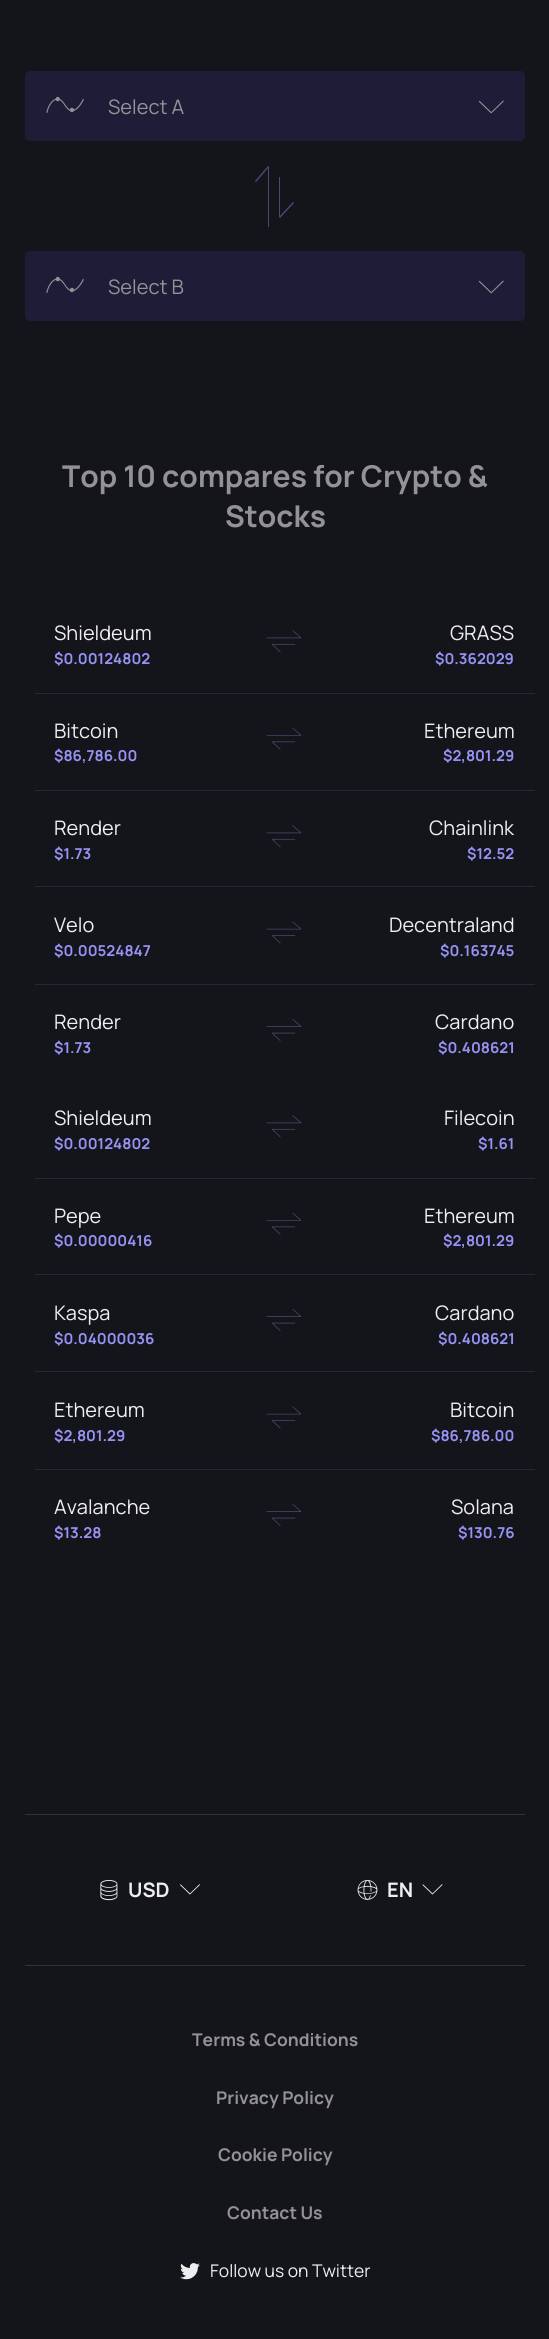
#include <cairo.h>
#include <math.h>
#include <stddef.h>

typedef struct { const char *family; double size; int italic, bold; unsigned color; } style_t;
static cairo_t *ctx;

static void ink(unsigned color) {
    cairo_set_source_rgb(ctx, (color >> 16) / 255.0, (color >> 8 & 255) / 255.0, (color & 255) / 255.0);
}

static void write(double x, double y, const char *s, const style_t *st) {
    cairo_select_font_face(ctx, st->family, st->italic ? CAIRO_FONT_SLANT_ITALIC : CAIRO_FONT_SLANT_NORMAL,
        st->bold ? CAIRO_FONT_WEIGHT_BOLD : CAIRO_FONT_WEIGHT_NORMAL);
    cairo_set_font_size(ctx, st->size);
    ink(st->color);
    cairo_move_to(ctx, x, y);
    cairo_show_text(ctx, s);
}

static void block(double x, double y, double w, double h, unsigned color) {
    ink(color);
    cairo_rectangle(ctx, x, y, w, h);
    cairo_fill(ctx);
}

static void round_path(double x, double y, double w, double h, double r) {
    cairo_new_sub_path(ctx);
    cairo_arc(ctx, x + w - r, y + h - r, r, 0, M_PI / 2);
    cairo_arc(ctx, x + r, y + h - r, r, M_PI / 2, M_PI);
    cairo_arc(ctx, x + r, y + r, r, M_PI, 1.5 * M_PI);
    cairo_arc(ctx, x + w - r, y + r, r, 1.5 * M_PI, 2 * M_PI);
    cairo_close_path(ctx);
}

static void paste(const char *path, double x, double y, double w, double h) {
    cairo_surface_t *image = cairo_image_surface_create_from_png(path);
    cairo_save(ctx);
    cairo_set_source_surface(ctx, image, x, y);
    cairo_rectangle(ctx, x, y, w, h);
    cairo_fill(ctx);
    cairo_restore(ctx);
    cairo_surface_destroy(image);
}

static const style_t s1 = {"Manrope ExtraLight", 20, 0, 0, 0x949298};
static const style_t s2 = {"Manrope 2 ExtraLight", 30, 0, 0, 0x949298};
static const style_t s3 = {"Manrope ExtraLight", 20, 0, 0, 0xeeeeee};
static const style_t s4 = {"Manrope 2 ExtraLight", 15, 0, 0, 0x9793f5};
static const style_t s5 = {"Manrope 2 ExtraLight", 20, 0, 0, 0xeeeeee};
static const style_t s6 = {"Manrope 2 ExtraLight", 17.5, 0, 0, 0x949298};
static const style_t s7 = {"Manrope ExtraLight", 17.5, 0, 0, 0xeeeeee};

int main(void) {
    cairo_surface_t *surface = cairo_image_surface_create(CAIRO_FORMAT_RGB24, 549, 2339);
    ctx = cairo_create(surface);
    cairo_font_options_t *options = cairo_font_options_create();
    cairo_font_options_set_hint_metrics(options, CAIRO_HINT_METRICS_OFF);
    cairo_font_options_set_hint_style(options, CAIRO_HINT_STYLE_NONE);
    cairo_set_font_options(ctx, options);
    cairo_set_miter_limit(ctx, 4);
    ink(0x14141b);
    cairo_paint(ctx);
    ink(0x1e1c36);
    round_path(25, 71, 500, 70, 5);
    cairo_fill(ctx);
    paste("pic1.png", 46, 96, 38, 17);
    write(108, 114, "Select A", &s1);
    paste("pic2.png", 478, 100, 26, 14);
    ink(0x4a4971);
    cairo_new_path(ctx);
    cairo_move_to(ctx, 268, 227);
    cairo_line_to(ctx, 268, 167);
    cairo_line_to(ctx, 269, 167);
    cairo_line_to(ctx, 269, 227);
    cairo_close_path(ctx);
    cairo_move_to(ctx, 256, 182);
    cairo_line_to(ctx, 255, 181);
    cairo_line_to(ctx, 268, 166);
    cairo_line_to(ctx, 269, 167);
    cairo_close_path(ctx);
    cairo_move_to(ctx, 279, 217);
    cairo_line_to(ctx, 279, 177);
    cairo_line_to(ctx, 280, 177);
    cairo_line_to(ctx, 280, 217);
    cairo_close_path(ctx);
    cairo_move_to(ctx, 280, 218);
    cairo_line_to(ctx, 279, 217);
    cairo_line_to(ctx, 293, 202);
    cairo_line_to(ctx, 294, 203);
    cairo_close_path(ctx);
    cairo_fill(ctx);
    ink(0x1e1c36);
    round_path(25, 251, 500, 70, 5);
    cairo_fill(ctx);
    paste("pic1.png", 46, 276, 38, 17);
    write(108, 294, "Select B", &s1);
    paste("pic2.png", 478, 280, 26, 14);
    write(62, 487, "Top 10 compares for Crypto &", &s2);
    write(225, 527, "Stocks", &s2);
    block(35, 693, 500, 1, 0x282832);
    write(54, 640, "Shieldeum", &s3);
    write(54, 664, "$0.00124802", &s4);
    paste("pic3.png", 266, 630, 36, 23);
    write(450, 640, "GRASS", &s3);
    write(435, 664, "$0.362029", &s4);
    block(35, 790, 500, 1, 0x282832);
    write(54, 738, "Bitcoin", &s3);
    write(54, 761, "$86,786.00", &s4);
    paste("pic4.png", 266, 727, 36, 23);
    write(424, 738, "Ethereum", &s3);
    write(443, 761, "$2,801.29", &s4);
    block(35, 886, 500, 1, 0x282832);
    write(54, 835, "Render", &s3);
    write(54, 859, "$1.73", &s4);
    paste("pic3.png", 266, 825, 36, 23);
    write(429, 835, "Chainlink", &s3);
    write(467, 859, "$12.52", &s4);
    block(35, 984, 500, 1, 0x282832);
    write(54, 932, "Velo", &s3);
    write(54, 956, "$0.00524847", &s4);
    paste("pic5.png", 266, 921, 36, 23);
    write(389, 932, "Decentraland", &s3);
    write(440, 956, "$0.163745", &s4);
    write(54, 1029, "Render", &s3);
    write(54, 1053, "$1.73", &s4);
    paste("pic6.png", 266, 1019, 36, 22);
    write(435, 1029, "Cardano", &s3);
    write(438, 1053, "$0.408621", &s4);
    block(35, 1178, 500, 1, 0x282832);
    write(54, 1125, "Shieldeum", &s3);
    write(54, 1149, "$0.00124802", &s4);
    paste("pic3.png", 266, 1115, 36, 23);
    write(444, 1125, "Filecoin", &s3);
    write(478, 1149, "$1.61", &s4);
    block(35, 1274, 500, 1, 0x282832);
    write(54, 1223, "Pepe", &s3);
    write(54, 1246, "$0.00000416", &s4);
    paste("pic4.png", 266, 1212, 36, 23);
    write(424, 1223, "Ethereum", &s3);
    write(443, 1246, "$2,801.29", &s4);
    block(35, 1371, 500, 1, 0x282832);
    write(54, 1320, "Kaspa", &s3);
    write(54, 1344, "$0.04000036", &s4);
    paste("pic6.png", 266, 1309, 36, 22);
    write(435, 1320, "Cardano", &s3);
    write(438, 1344, "$0.408621", &s4);
    block(35, 1469, 500, 1, 0x282832);
    write(54, 1417, "Ethereum", &s3);
    write(54, 1441, "$2,801.29", &s4);
    paste("pic5.png", 266, 1406, 36, 23);
    write(450, 1417, "Bitcoin", &s3);
    write(431, 1441, "$86,786.00", &s4);
    write(54, 1514, "Avalanche", &s3);
    write(54, 1538, "$13.28", &s4);
    paste("pic6.png", 266, 1504, 36, 22);
    write(451, 1514, "Solana", &s3);
    write(458, 1538, "$130.76", &s4);
    block(25, 1814, 500, 1, 0x333333);
    paste("pic7.png", 100, 1880, 18, 21);
    write(128, 1897, "USD", &s5);
    paste("pic8.png", 180, 1884, 20, 11);
    paste("pic9.png", 357, 1880, 21, 20);
    write(387, 1897, "EN", &s5);
    paste("pic10.png", 422, 1884, 21, 11);
    block(25, 1965, 500, 1, 0x333333);
    write(192, 2046, "Terms & Conditions", &s6);
    write(216, 2104, "Privacy Policy", &s6);
    write(218, 2161, "Cookie Policy", &s6);
    write(227, 2219, "Contact Us", &s6);
    paste("pic11.png", 180, 2263, 20, 17);
    write(210, 2277, "Follow us on Twitter", &s7);
    cairo_surface_write_to_png(surface, "screenshot.png");
    cairo_font_options_destroy(options);
    cairo_destroy(ctx);
    cairo_surface_destroy(surface);
    return 0;
}
